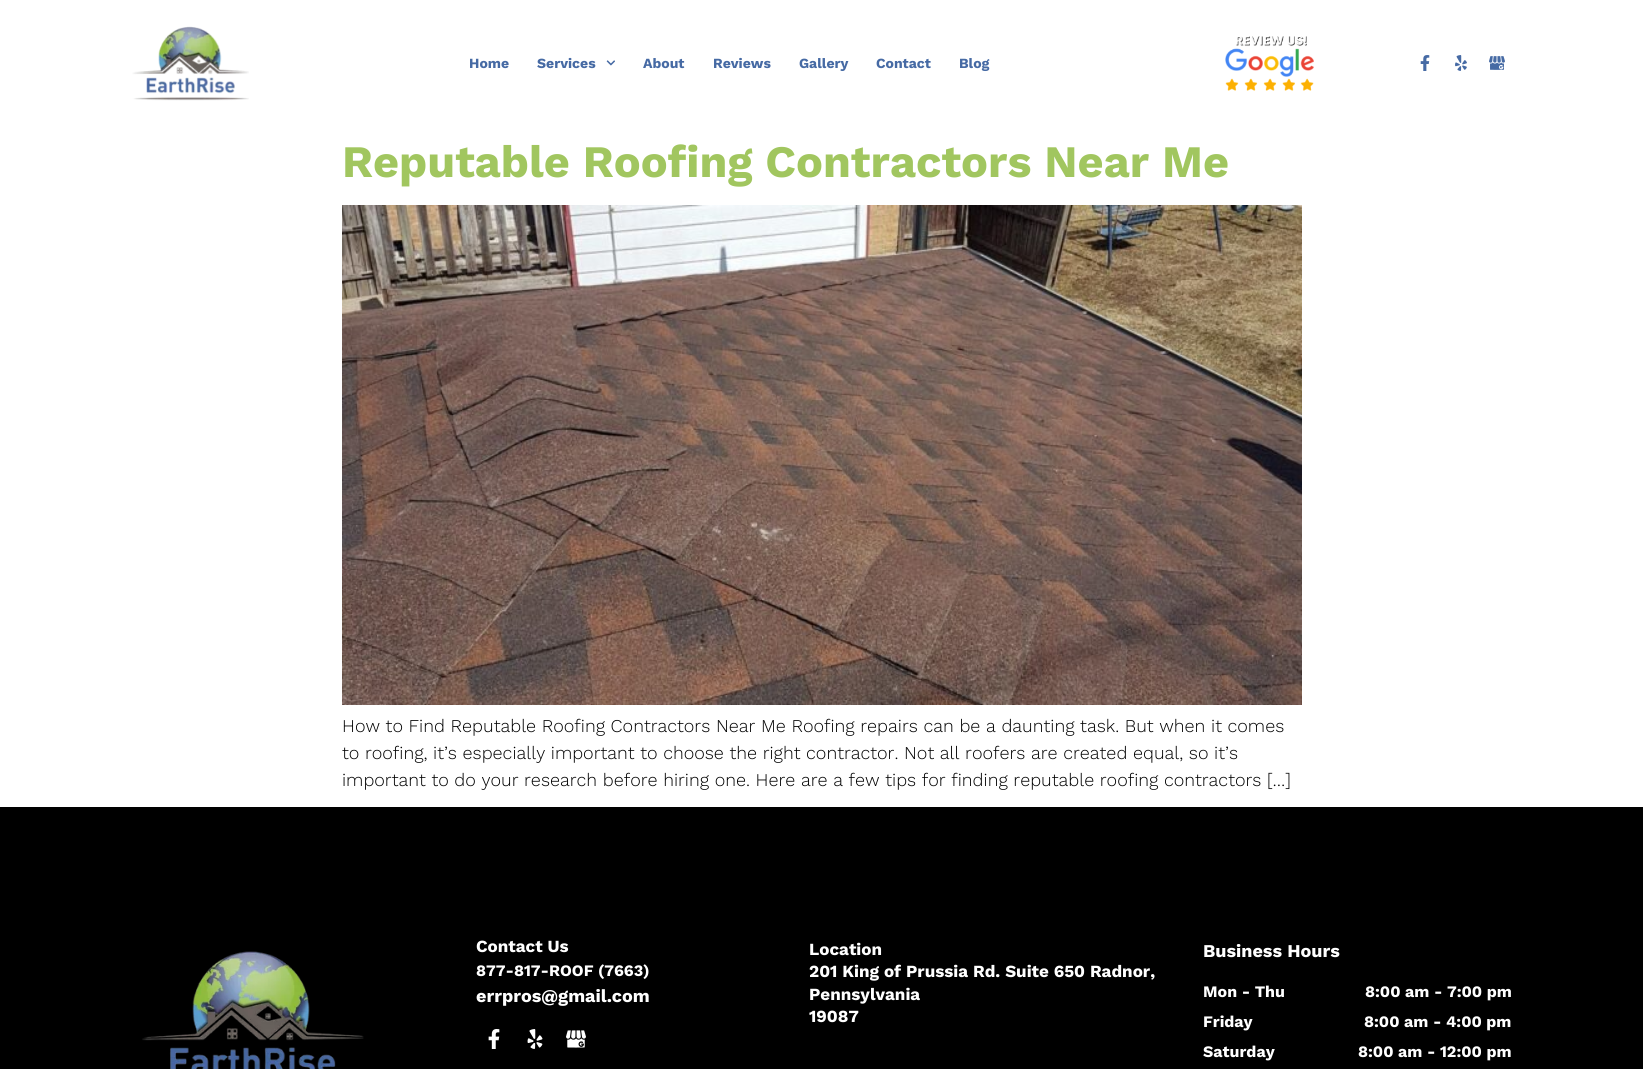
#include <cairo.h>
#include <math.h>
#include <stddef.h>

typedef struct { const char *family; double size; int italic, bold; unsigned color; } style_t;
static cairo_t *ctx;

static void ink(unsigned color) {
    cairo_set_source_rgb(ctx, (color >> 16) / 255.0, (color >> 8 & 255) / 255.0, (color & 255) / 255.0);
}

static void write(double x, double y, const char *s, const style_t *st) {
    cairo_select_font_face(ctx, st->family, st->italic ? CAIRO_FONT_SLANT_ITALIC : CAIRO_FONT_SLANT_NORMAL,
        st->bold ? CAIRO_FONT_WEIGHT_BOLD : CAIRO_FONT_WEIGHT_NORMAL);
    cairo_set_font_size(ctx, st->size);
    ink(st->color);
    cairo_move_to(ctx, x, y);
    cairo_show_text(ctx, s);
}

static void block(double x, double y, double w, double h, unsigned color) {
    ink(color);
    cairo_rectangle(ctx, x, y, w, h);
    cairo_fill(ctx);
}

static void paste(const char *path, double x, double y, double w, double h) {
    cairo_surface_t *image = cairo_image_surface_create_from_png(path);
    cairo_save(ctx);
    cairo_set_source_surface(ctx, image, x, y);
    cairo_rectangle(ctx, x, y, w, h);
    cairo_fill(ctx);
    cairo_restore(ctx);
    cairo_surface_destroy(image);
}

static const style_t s1 = {"Work Sans", 14, 0, 1, 0x466aa4};
static const style_t s2 = {"Work Sans", 45, 0, 1, 0xa1c65f};
static const style_t s3 = {"Work Sans Light", 18, 0, 0, 0x000000};
static const style_t s4 = {"Work Sans", 17, 0, 1, 0xffffff};
static const style_t s5 = {"Work Sans", 16, 0, 1, 0xffffff};
static const style_t s6 = {"Work Sans", 18, 0, 1, 0xffffff};

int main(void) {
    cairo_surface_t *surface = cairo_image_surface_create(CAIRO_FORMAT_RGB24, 1643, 1069);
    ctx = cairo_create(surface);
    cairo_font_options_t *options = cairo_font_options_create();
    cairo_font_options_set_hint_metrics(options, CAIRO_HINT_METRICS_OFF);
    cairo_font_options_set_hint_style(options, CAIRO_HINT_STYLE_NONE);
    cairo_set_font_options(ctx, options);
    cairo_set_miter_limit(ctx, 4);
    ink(0xffffff);
    cairo_paint(ctx);
    paste("pic1.png", 132, 26, 117, 75);
    write(469, 68, "Home", &s1);
    write(537, 68, "Services", &s1);
    paste("pic2.png", 606, 60, 9, 6);
    write(643, 68, "About", &s1);
    write(713, 68, "Reviews", &s1);
    write(799, 68, "Gallery", &s1);
    write(876, 68, "Contact", &s1);
    write(959, 68, "Blog", &s1);
    paste("pic3.png", 1225, 36, 89, 55);
    paste("pic4.png", 1420, 55, 10, 16);
    paste("pic5.png", 1455, 55, 12, 16);
    paste("pic6.png", 1489, 56, 16, 14);
    write(342, 177, "Reputable Roofing Contractors Near Me", &s2);
    paste("pic7.png", 342, 205, 960, 500);
    write(342, 732, "How to Find Reputable Roofing Contractors Near Me Roofing repairs can be a daunting task. But when it comes", &s3);
    write(342, 759, "to roofing, it’s especially important to choose the right contractor. Not all roofers are created equal, so it’s", &s3);
    write(342, 786, "important to do your research before hiring one. Here are a few tips for finding reputable roofing contractors […]", &s3);
    block(0, 807, 1643, 262, 0x000000);
    paste("pic8.png", 142, 951, 222, 118);
    write(476, 952, "Contact Us", &s4);
    write(476, 976, "877-817-ROOF (7663)", &s5);
    write(476, 1002, "errpros@gmail.com", &s6);
    paste("pic9.png", 488, 1029, 12, 20);
    paste("pic10.png", 527, 1029, 16, 20);
    paste("pic11.png", 566, 1030, 20, 18);
    write(809, 955, "Location", &s4);
    write(809, 977, "201 King of Prussia Rd. Suite 650 Radnor,", &s4);
    write(809, 1000, "Pennsylvania", &s4);
    write(809, 1022, "19087", &s4);
    write(1203, 957, "Business Hours", &s6);
    write(1203, 997, "Mon - Thu", &s5);
    write(1203, 1027, "Friday", &s5);
    write(1203, 1057, "Saturday", &s5);
    write(1365, 997, "8:00 am - 7:00 pm", &s5);
    write(1364, 1027, "8:00 am - 4:00 pm", &s5);
    write(1358, 1057, "8:00 am - 12:00 pm", &s5);
    cairo_surface_write_to_png(surface, "screenshot.png");
    cairo_font_options_destroy(options);
    cairo_destroy(ctx);
    cairo_surface_destroy(surface);
    return 0;
}
